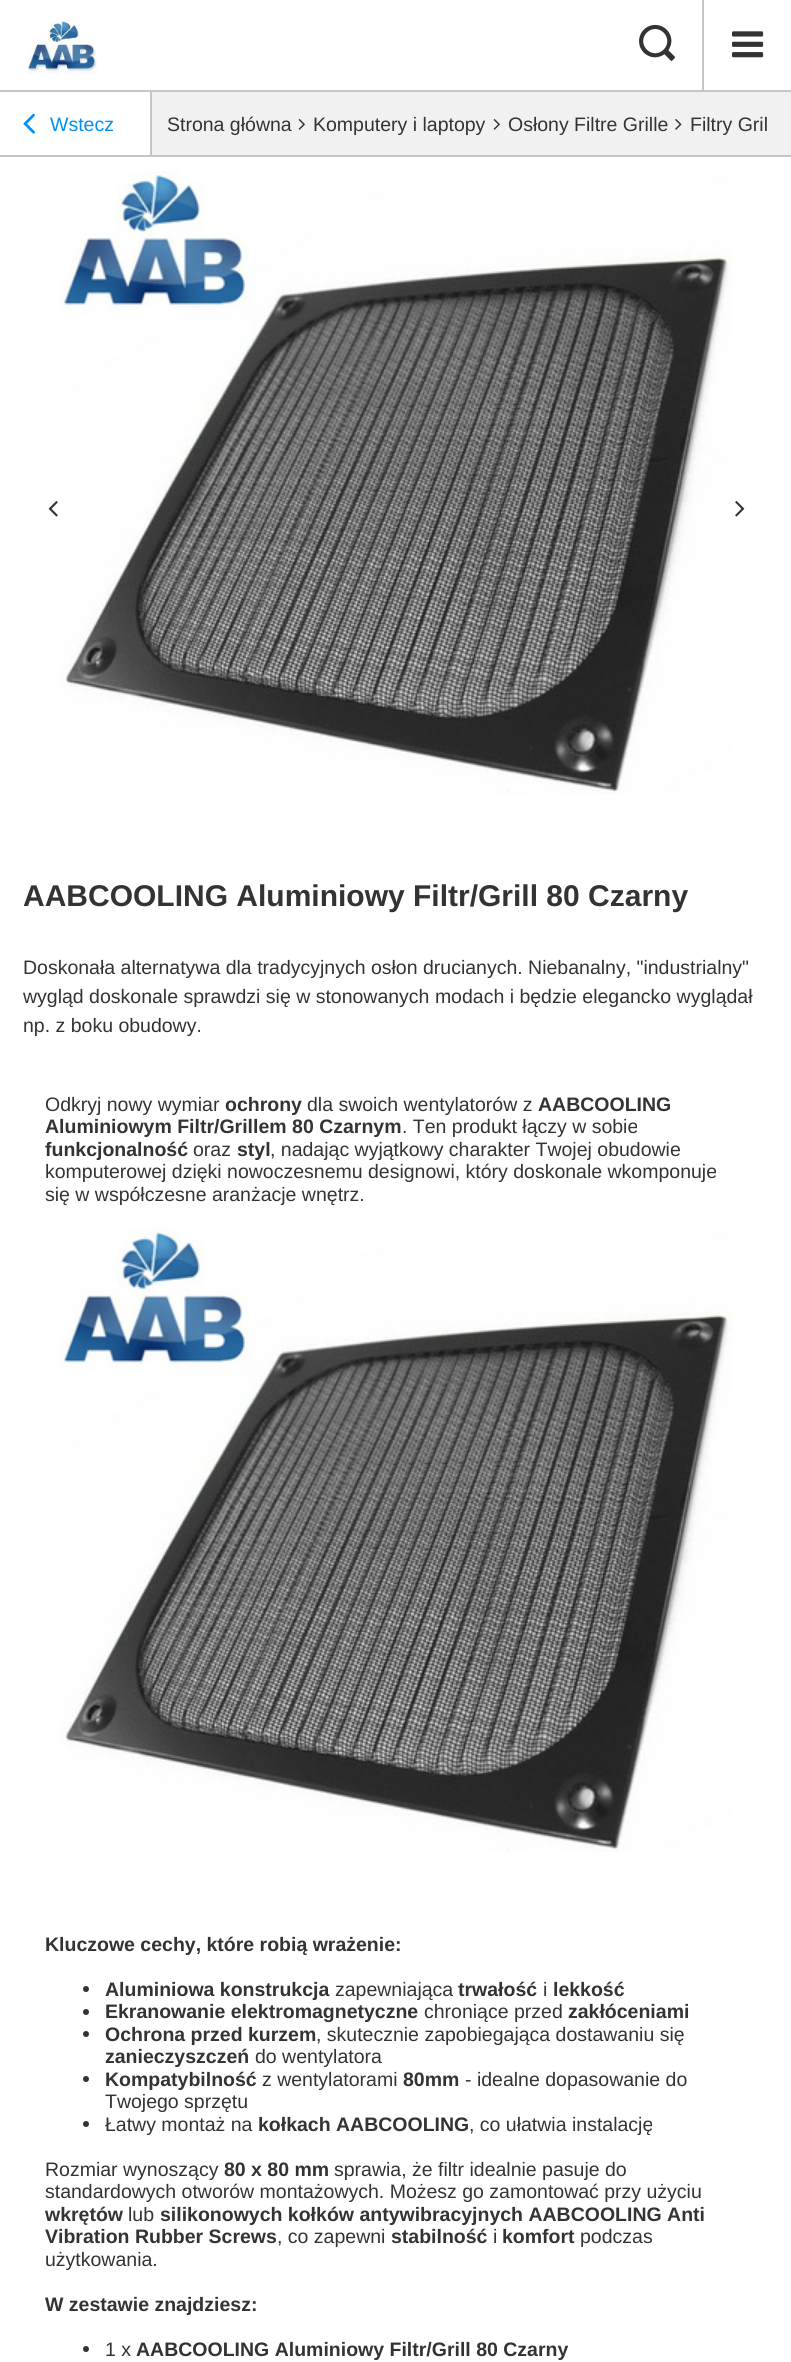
#include <cairo.h>
#include <math.h>
#include <stddef.h>

typedef struct { const char *family; double size; int italic, bold; unsigned color; } style_t;
static cairo_t *ctx;

static void ink(unsigned color) {
    cairo_set_source_rgb(ctx, (color >> 16) / 255.0, (color >> 8 & 255) / 255.0, (color & 255) / 255.0);
}

static void write(double x, double y, const char *s, const style_t *st) {
    cairo_select_font_face(ctx, st->family, st->italic ? CAIRO_FONT_SLANT_ITALIC : CAIRO_FONT_SLANT_NORMAL,
        st->bold ? CAIRO_FONT_WEIGHT_BOLD : CAIRO_FONT_WEIGHT_NORMAL);
    cairo_set_font_size(ctx, st->size);
    ink(st->color);
    cairo_move_to(ctx, x, y);
    cairo_show_text(ctx, s);
}

static void block(double x, double y, double w, double h, unsigned color) {
    ink(color);
    cairo_rectangle(ctx, x, y, w, h);
    cairo_fill(ctx);
}

static void paste(const char *path, double x, double y, double w, double h) {
    cairo_surface_t *image = cairo_image_surface_create_from_png(path);
    cairo_save(ctx);
    cairo_set_source_surface(ctx, image, x, y);
    cairo_rectangle(ctx, x, y, w, h);
    cairo_fill(ctx);
    cairo_restore(ctx);
    cairo_surface_destroy(image);
}

static const style_t s1 = {"Liberation Sans", 19.5, 0, 0, 0x0090f6};
static const style_t s2 = {"Liberation Sans", 19.5, 0, 0, 0x333333};
static const style_t s3 = {"Liberation Sans", 30, 0, 1, 0x333333};
static const style_t s4 = {"Liberation Sans", 19.5, 0, 1, 0x333333};

int main(void) {
    cairo_surface_t *surface = cairo_image_surface_create(CAIRO_FORMAT_RGB24, 791, 2362);
    ctx = cairo_create(surface);
    cairo_font_options_t *options = cairo_font_options_create();
    cairo_font_options_set_hint_metrics(options, CAIRO_HINT_METRICS_OFF);
    cairo_font_options_set_hint_style(options, CAIRO_HINT_STYLE_NONE);
    cairo_set_font_options(ctx, options);
    cairo_set_miter_limit(ctx, 4);
    ink(0xffffff);
    cairo_paint(ctx);
    block(0, 90, 791, 2, 0xc4c7c8);
    paste("pic1.png", 27, 20, 70, 54);
    paste("pic2.png", 639, 24, 36, 37);
    block(702, 0, 2, 90, 0xc4c7c8);
    paste("pic3.png", 732, 31, 32, 27);
    block(152, 92, 639, 63, 0xf1f1f1);
    paste("pic4.png", 23, 113, 12, 21);
    write(50, 131, "Wstecz", &s1);
    block(150, 92, 2, 64, 0xc4c7c8);
    write(167, 131, "Strona główna", &s2);
    paste("pic5.png", 298, 119, 7, 11);
    write(313, 131, "Komputery i laptopy", &s2);
    paste("pic5.png", 493, 119, 7, 11);
    write(508, 131, "Osłony Filtre Grille", &s2);
    paste("pic6.png", 675, 119, 7, 11);
    write(690, 131, "Filtry Gril", &s2);
    block(0, 155, 791, 2, 0xc4c7c8);
    paste("pic7.png", 48, 501, 10, 16);
    paste("pic8.png", 59, 171, 674, 624);
    paste("pic9.png", 735, 501, 10, 16);
    write(23, 906, "AABCOOLING Aluminiowy Filtr/Grill 80 Czarny", &s3);
    write(23, 974, "Doskonała alternatywa dla tradycyjnych osłon drucianych. Niebanalny, \"industrialny\"", &s2);
    write(23, 1003, "wygląd doskonale sprawdzi się w stonowanych modach i będzie elegancko wyglądał", &s2);
    write(23, 1032, "np. z boku obudowy.", &s2);
    write(45, 1111, "Odkryj nowy wymiar", &s2);
    write(225, 1111, "ochrony", &s4);
    write(307, 1111, "dla swoich wentylatorów z", &s2);
    write(538, 1111, "AABCOOLING", &s4);
    write(45, 1133, "Aluminiowym Filtr/Grillem 80 Czarnym", &s4);
    write(402, 1133, ". Ten produkt łączy w sobie", &s2);
    write(45, 1156, "funkcjonalność", &s4);
    write(193, 1156, "oraz", &s2);
    write(237, 1156, "styl", &s4);
    write(270, 1156, ", nadając wyjątkowy charakter Twojej obudowie", &s2);
    write(45, 1178, "komputerowej dzięki nowoczesnemu designowi, który doskonale wkomponuje", &s2);
    write(45, 1201, "się w współczesne aranżacje wnętrz.", &s2);
    paste("pic10.png", 59, 1228, 674, 624);
    write(45, 1951, "Kluczowe cechy, które robią wrażenie:", &s4);
    cairo_new_path(ctx);
    cairo_arc(ctx, 86, 1989, 3, 0, 2 * M_PI);
    cairo_fill(ctx);
    write(105, 1996, "Aluminiowa konstrukcja", &s4);
    write(335, 1996, "zapewniająca", &s2);
    write(458, 1996, "trwałość", &s4);
    write(543, 1996, "i", &s2);
    write(553, 1996, "lekkość", &s4);
    cairo_new_path(ctx);
    cairo_arc(ctx, 86, 2012, 3, 0, 2 * M_PI);
    cairo_fill(ctx);
    write(105, 2018, "Ekranowanie elektromagnetyczne", &s4);
    write(424, 2018, "chroniące przed", &s2);
    write(568, 2018, "zakłóceniami", &s4);
    cairo_new_path(ctx);
    cairo_arc(ctx, 86, 2034, 3, 0, 2 * M_PI);
    cairo_fill(ctx);
    write(105, 2041, "Ochrona przed kurzem", &s4);
    write(316, 2041, ", skutecznie zapobiegająca dostawaniu się", &s2);
    write(105, 2063, "zanieczyszczeń", &s4);
    write(255, 2063, "do wentylatora", &s2);
    cairo_new_path(ctx);
    cairo_arc(ctx, 86, 2079, 3, 0, 2 * M_PI);
    cairo_fill(ctx);
    write(105, 2086, "Kompatybilność", &s4);
    write(262, 2086, "z wentylatorami", &s2);
    write(403, 2086, "80mm", &s4);
    write(465, 2086, "- idealne dopasowanie do", &s2);
    write(105, 2108, "Twojego sprzętu", &s2);
    cairo_new_path(ctx);
    cairo_arc(ctx, 86, 2124, 3, 0, 2 * M_PI);
    cairo_fill(ctx);
    write(105, 2131, "Łatwy montaż na", &s2);
    write(258, 2131, "kołkach AABCOOLING", &s4);
    write(469, 2131, ", co ułatwia instalację", &s2);
    write(45, 2176, "Rozmiar wynoszący", &s2);
    write(224, 2176, "80 x 80 mm", &s4);
    write(334, 2176, "sprawia, że filtr idealnie pasuje do", &s2);
    write(45, 2198, "standardowych otworów montażowych. Możesz go zamontować przy użyciu", &s2);
    write(45, 2221, "wkrętów", &s4);
    write(128, 2221, "lub", &s2);
    write(160, 2221, "silikonowych kołków antywibracyjnych AABCOOLING Anti", &s4);
    write(45, 2243, "Vibration Rubber Screws", &s4);
    write(277, 2243, ", co zapewni", &s2);
    write(391, 2243, "stabilność", &s4);
    write(493, 2243, "i", &s2);
    write(502, 2243, "komfort", &s4);
    write(580, 2243, "podczas", &s2);
    write(45, 2266, "użytkowania.", &s2);
    write(45, 2311, "W zestawie znajdziesz:", &s4);
    cairo_new_path(ctx);
    cairo_arc(ctx, 86, 2349, 3, 0, 2 * M_PI);
    cairo_fill(ctx);
    write(105, 2356, "1 x", &s2);
    write(136, 2356, "AABCOOLING Aluminiowy Filtr/Grill 80 Czarny", &s4);
    cairo_surface_write_to_png(surface, "screenshot.png");
    cairo_font_options_destroy(options);
    cairo_destroy(ctx);
    cairo_surface_destroy(surface);
    return 0;
}
